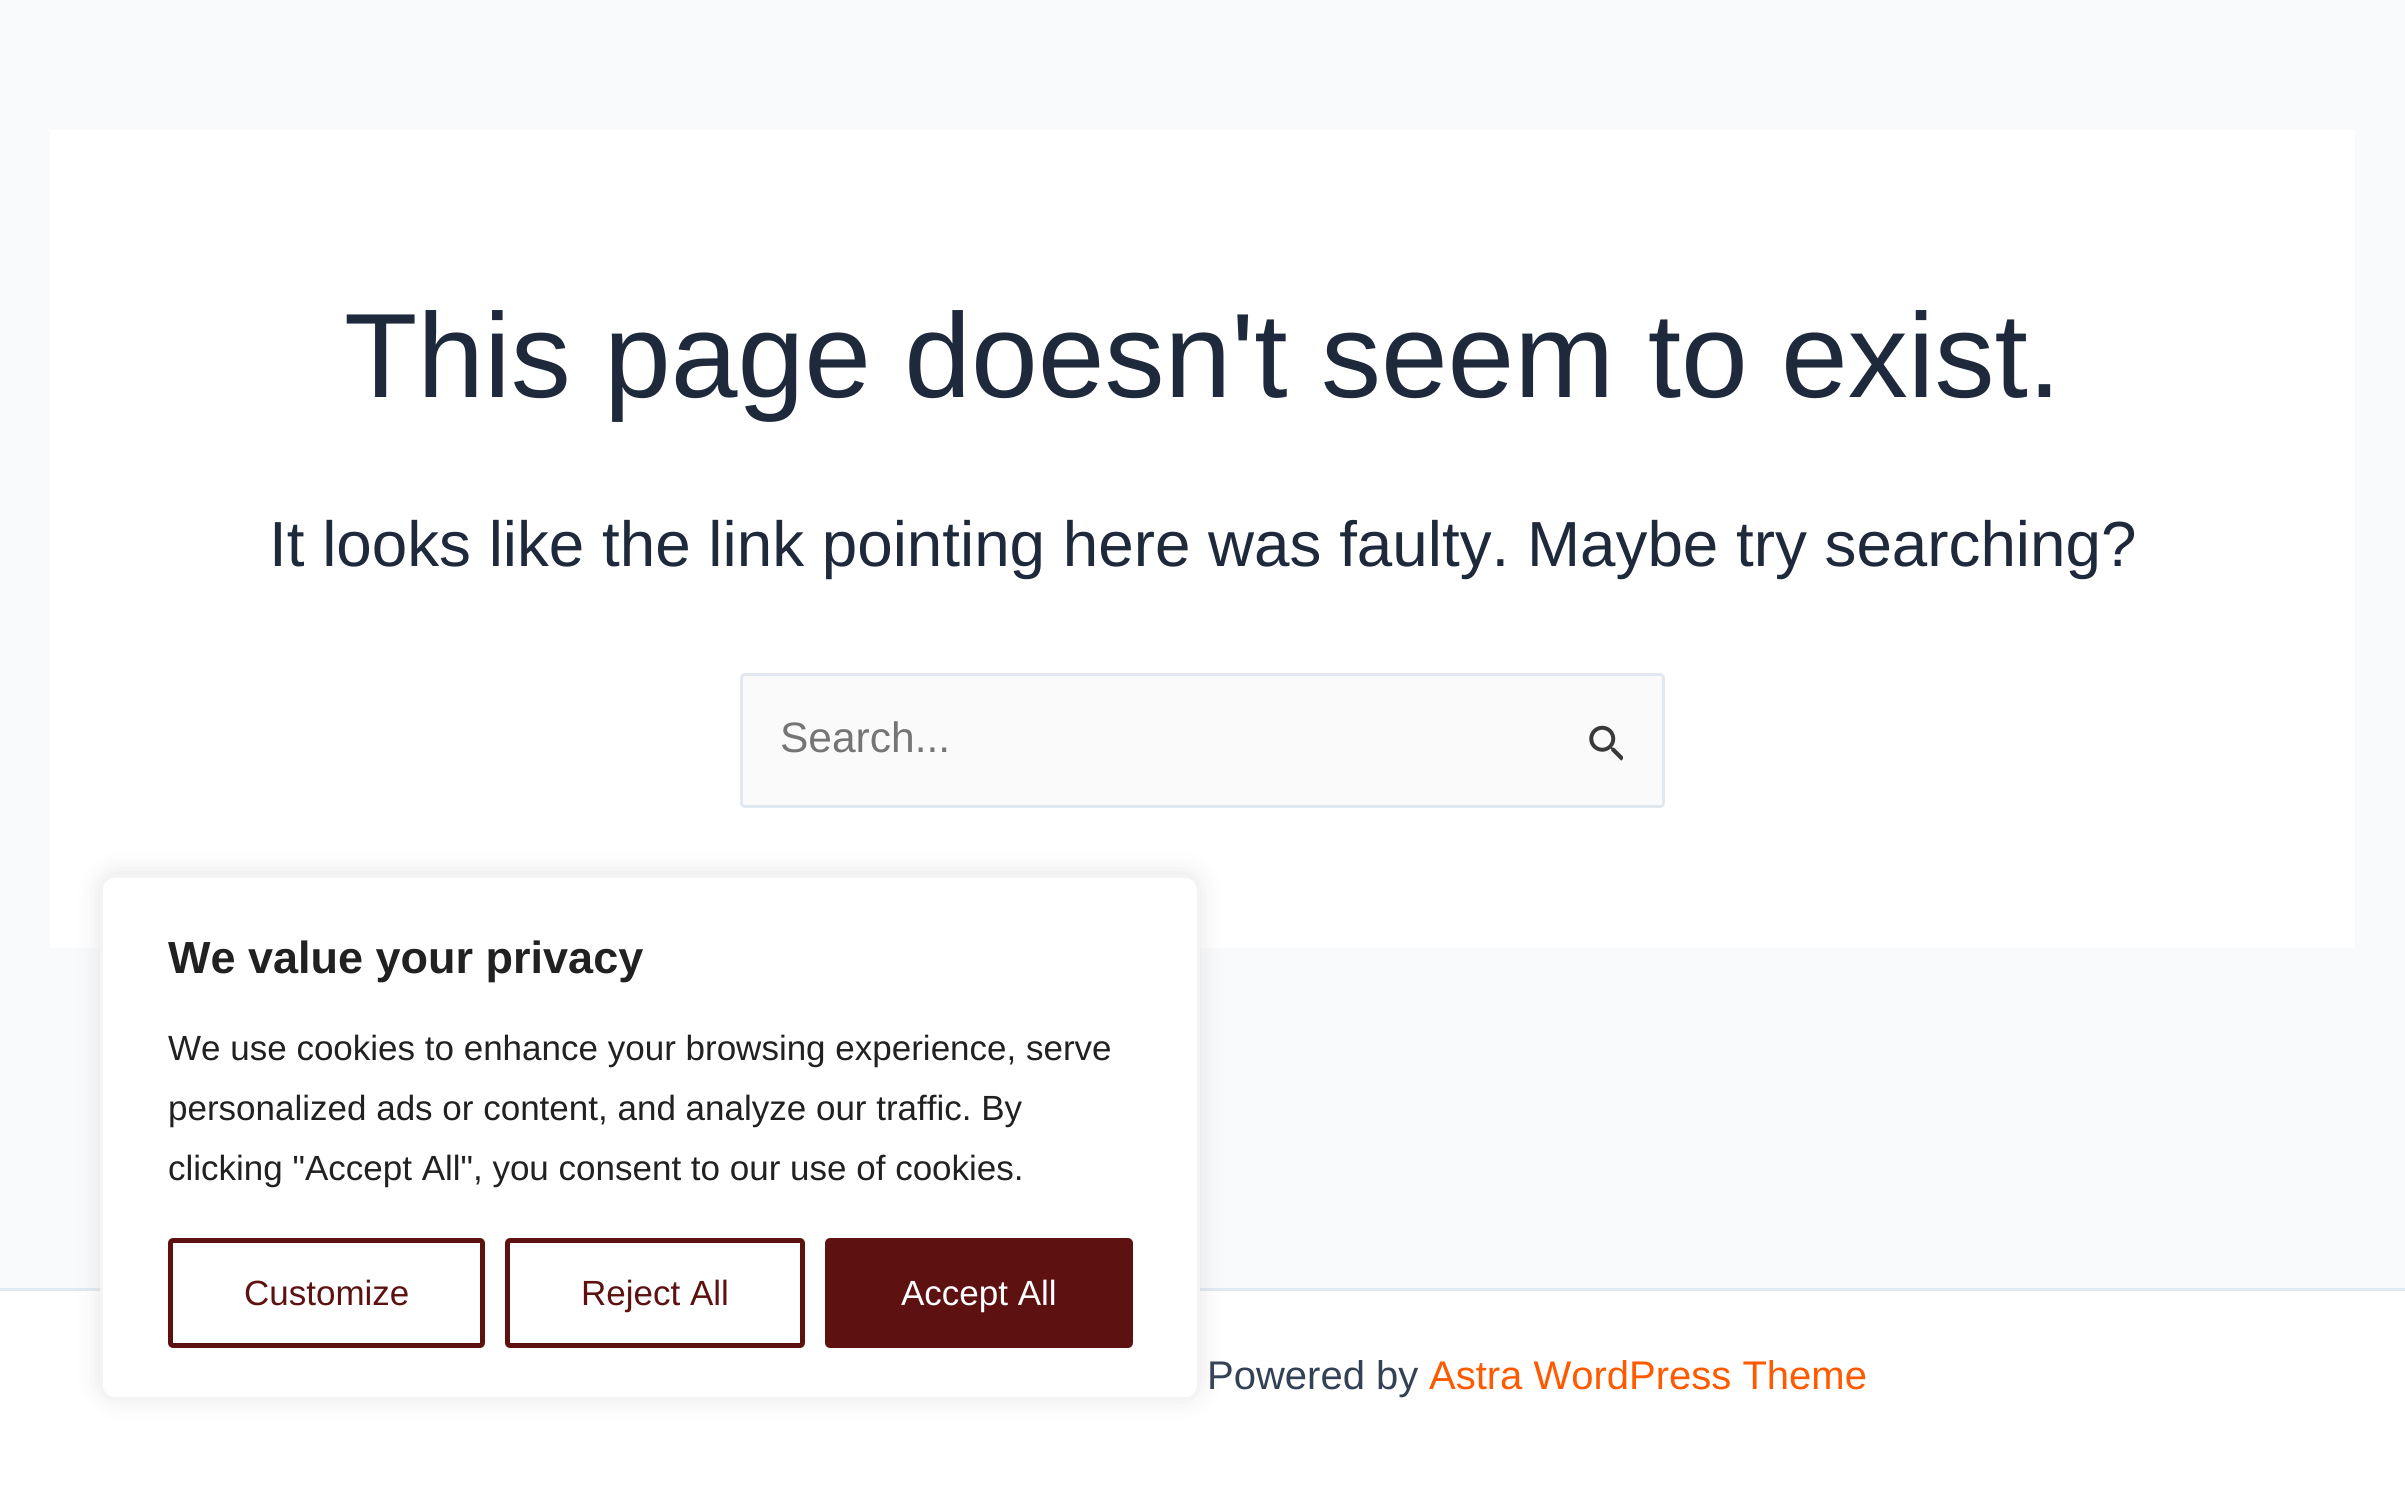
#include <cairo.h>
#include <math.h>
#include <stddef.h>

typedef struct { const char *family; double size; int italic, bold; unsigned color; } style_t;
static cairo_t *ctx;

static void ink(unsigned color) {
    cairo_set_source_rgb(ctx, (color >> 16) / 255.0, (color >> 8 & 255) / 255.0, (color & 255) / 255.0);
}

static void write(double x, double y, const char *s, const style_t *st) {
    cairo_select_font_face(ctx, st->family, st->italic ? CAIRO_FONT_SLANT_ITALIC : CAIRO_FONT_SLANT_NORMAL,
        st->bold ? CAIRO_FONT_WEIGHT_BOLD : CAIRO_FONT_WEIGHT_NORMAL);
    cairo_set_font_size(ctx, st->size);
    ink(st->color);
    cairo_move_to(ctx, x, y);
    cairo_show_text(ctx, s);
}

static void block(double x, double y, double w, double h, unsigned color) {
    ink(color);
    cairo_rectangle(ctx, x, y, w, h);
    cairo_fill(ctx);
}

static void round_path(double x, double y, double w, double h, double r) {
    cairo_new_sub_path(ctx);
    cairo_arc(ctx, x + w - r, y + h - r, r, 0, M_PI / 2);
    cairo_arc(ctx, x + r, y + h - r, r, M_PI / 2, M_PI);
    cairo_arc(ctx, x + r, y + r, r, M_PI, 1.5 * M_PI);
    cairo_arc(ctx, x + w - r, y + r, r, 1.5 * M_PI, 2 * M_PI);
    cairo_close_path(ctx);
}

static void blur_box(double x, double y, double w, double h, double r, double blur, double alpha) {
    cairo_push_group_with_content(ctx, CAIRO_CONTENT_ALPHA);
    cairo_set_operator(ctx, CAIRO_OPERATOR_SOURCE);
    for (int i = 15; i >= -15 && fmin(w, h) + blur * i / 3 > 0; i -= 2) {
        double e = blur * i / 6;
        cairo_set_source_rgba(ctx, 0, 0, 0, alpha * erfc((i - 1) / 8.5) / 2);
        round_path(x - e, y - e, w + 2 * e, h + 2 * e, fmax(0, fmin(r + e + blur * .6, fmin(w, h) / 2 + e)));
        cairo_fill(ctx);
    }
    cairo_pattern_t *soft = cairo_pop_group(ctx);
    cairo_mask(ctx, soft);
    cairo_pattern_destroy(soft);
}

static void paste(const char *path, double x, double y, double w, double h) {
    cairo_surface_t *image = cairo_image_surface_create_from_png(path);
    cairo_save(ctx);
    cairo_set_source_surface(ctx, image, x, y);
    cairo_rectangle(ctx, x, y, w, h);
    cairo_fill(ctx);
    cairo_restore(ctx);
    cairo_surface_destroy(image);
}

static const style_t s1 = {"Liberation Sans", 120, 0, 0, 0x1e293b};
static const style_t s2 = {"Liberation Sans", 63.75, 0, 0, 0x1e293b};
static const style_t s3 = {"Liberation Sans", 42.5, 0, 0, 0x757575};
static const style_t s4 = {"Liberation Sans", 40, 0, 0, 0x334155};
static const style_t s5 = {"Liberation Sans", 40, 0, 0, 0xff5a00};
static const style_t s6 = {"Liberation Sans", 45, 0, 1, 0x212121};
static const style_t s7 = {"Liberation Sans", 35, 0, 0, 0x212121};
static const style_t s8 = {"Liberation Sans", 35, 0, 0, 0x5e1111};
static const style_t s9 = {"Liberation Sans", 35, 0, 0, 0xffffff};

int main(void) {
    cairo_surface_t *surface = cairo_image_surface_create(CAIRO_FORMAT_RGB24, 2405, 1498);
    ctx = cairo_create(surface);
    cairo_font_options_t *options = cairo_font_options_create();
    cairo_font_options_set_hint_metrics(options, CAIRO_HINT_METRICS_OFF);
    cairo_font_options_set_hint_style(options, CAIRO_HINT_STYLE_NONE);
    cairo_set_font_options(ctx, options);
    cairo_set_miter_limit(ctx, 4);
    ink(0xf9fafb);
    cairo_paint(ctx);
    block(50, 130, 2305, 818, 0xffffff);
    write(344, 397, "This page doesn't seem to exist.", &s1);
    write(269, 566, "It looks like the link pointing here was faulty. Maybe try searching?", &s2);
    ink(0xfafafa);
    round_path(741.5, 674.5, 922, 132, 3.5);
    cairo_fill_preserve(ctx);
    ink(0xe2e8f0);
    cairo_set_line_width(ctx, 3);
    cairo_stroke(ctx);
    write(780, 752, "Search...", &s3);
    paste("pic1.png", 1589, 725, 34, 36);
    block(0, 1291, 2405, 207, 0xffffff);
    block(0, 1288, 2405, 3, 0xe2e8f0);
    write(1207, 1389, "Powered by", &s4);
    write(1429, 1389, "Astra WordPress Theme", &s5);
    ink(0xacabab);
    blur_box(100, 873, 1100, 525, 15, 12.5, 0.3);
    ink(0xffffff);
    round_path(101.5, 876.5, 1097, 522, 13.5);
    cairo_fill_preserve(ctx);
    ink(0xf4f4f4);
    cairo_stroke(ctx);
    write(168, 973, "We value your privacy", &s6);
    write(168, 1060, "We use cookies to enhance your browsing experience, serve", &s7);
    write(168, 1120, "personalized ads or content, and analyze our traffic. By", &s7);
    write(168, 1180, "clicking \"Accept All\", you consent to our use of cookies.", &s7);
    round_path(170.5, 1240.5, 312, 105, 2.5);
    ink(0x5e1111);
    cairo_set_line_width(ctx, 5);
    cairo_stroke(ctx);
    write(244, 1305, "Customize", &s8);
    round_path(507.5, 1240.5, 295, 105, 2.5);
    cairo_stroke(ctx);
    write(581, 1305, "Reject All", &s8);
    round_path(827.5, 1240.5, 303, 105, 2.5);
    cairo_fill_preserve(ctx);
    cairo_stroke(ctx);
    write(901, 1305, "Accept All", &s9);
    cairo_surface_write_to_png(surface, "screenshot.png");
    cairo_font_options_destroy(options);
    cairo_destroy(ctx);
    cairo_surface_destroy(surface);
    return 0;
}
